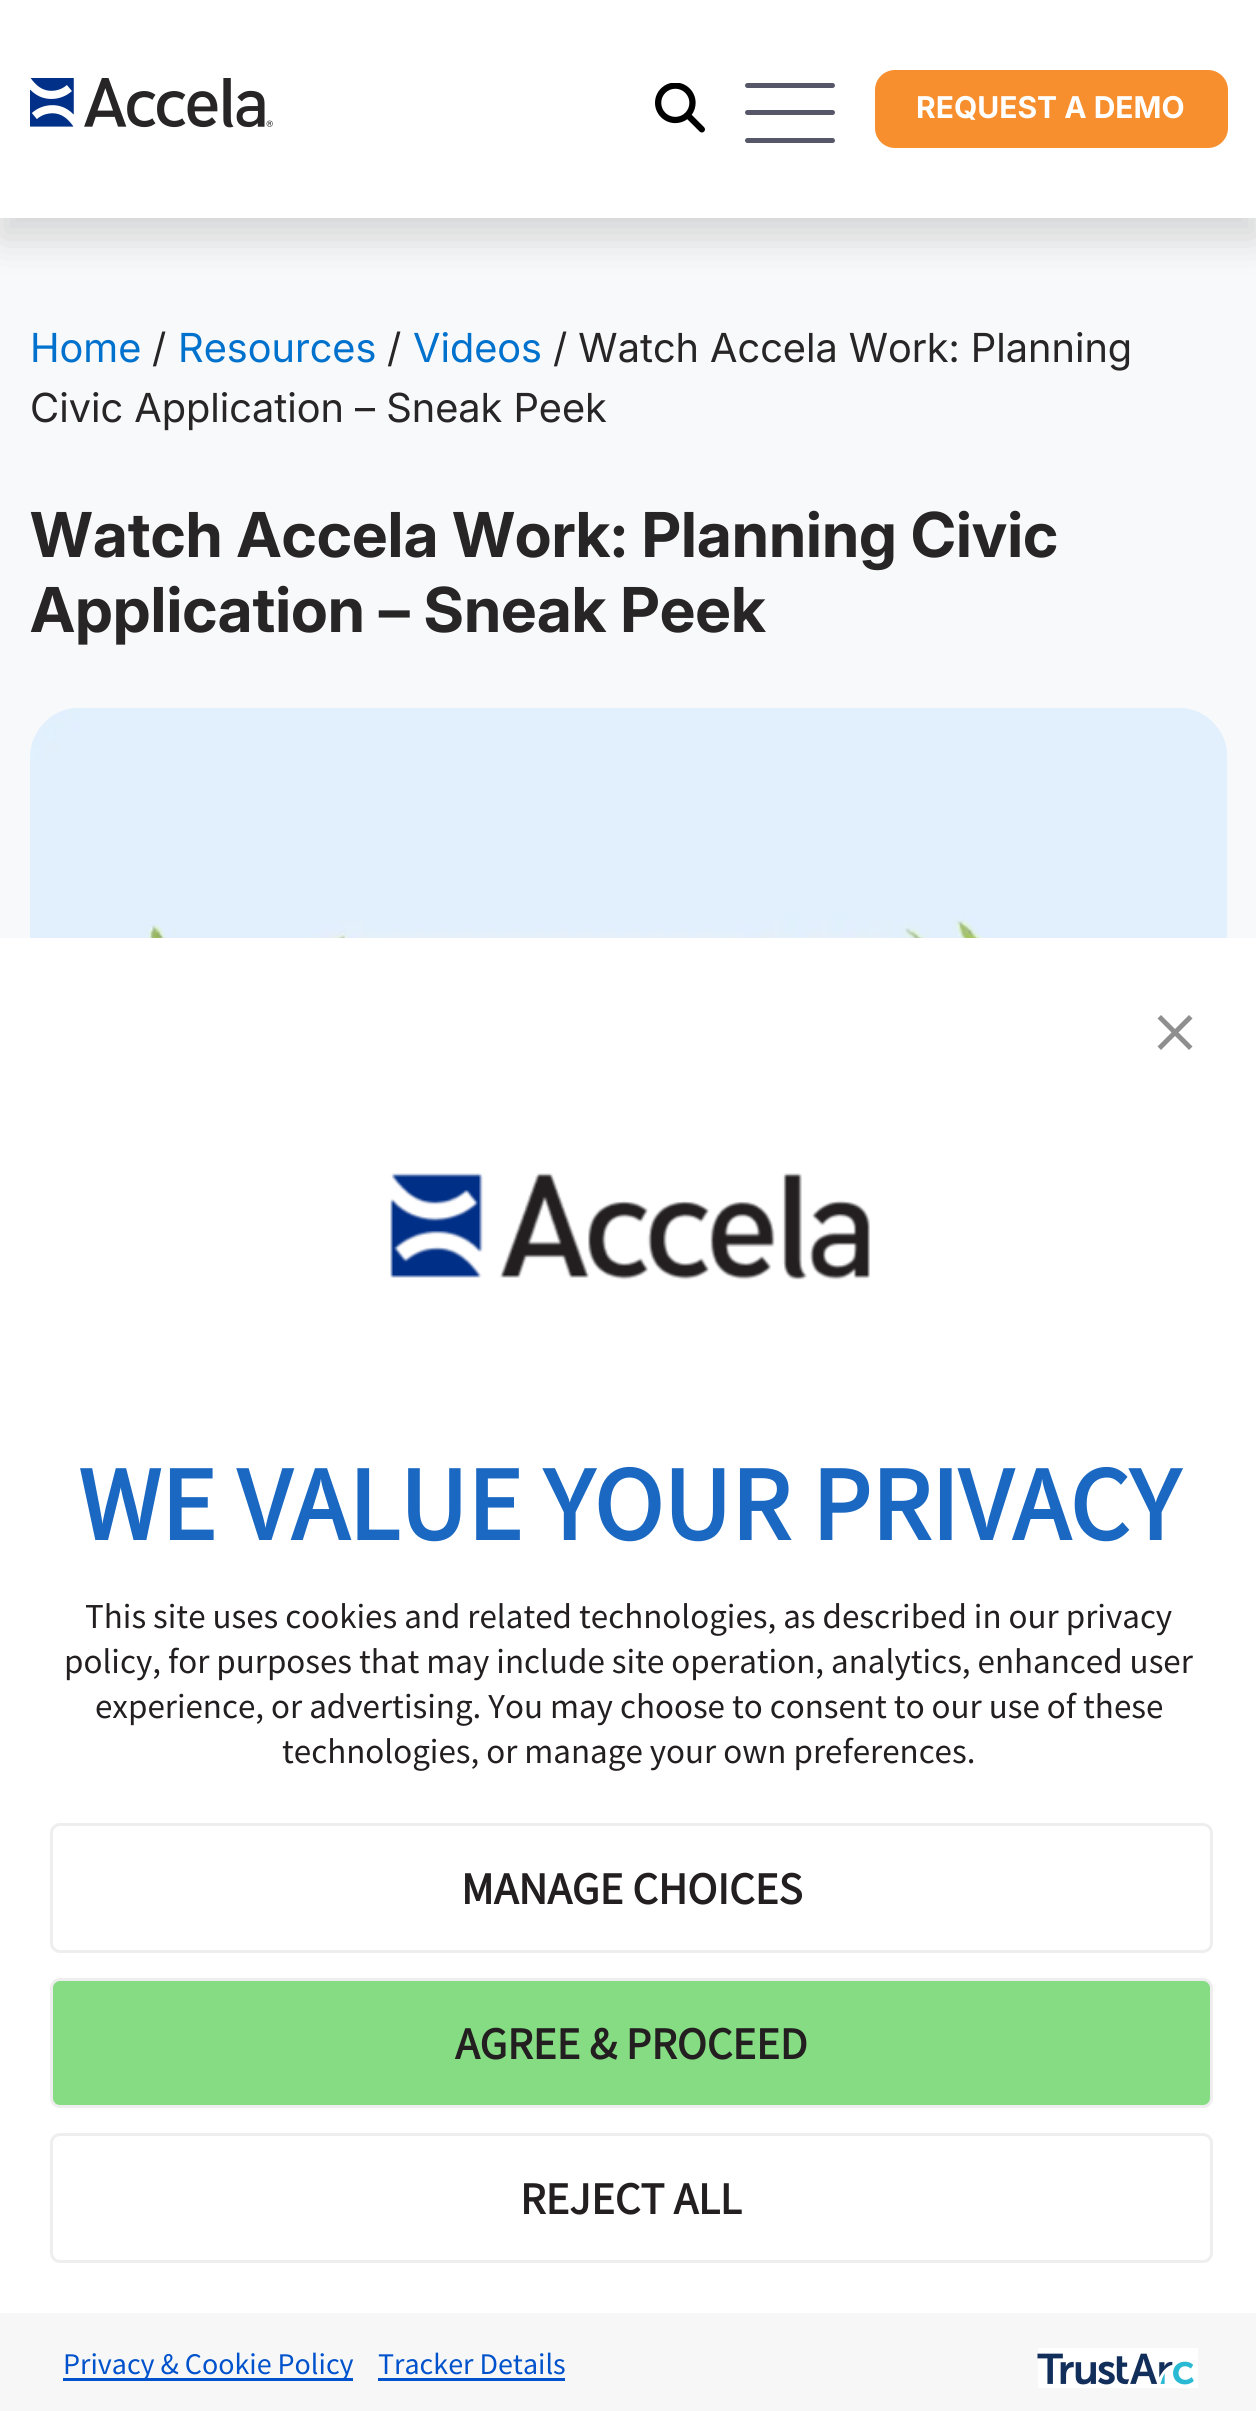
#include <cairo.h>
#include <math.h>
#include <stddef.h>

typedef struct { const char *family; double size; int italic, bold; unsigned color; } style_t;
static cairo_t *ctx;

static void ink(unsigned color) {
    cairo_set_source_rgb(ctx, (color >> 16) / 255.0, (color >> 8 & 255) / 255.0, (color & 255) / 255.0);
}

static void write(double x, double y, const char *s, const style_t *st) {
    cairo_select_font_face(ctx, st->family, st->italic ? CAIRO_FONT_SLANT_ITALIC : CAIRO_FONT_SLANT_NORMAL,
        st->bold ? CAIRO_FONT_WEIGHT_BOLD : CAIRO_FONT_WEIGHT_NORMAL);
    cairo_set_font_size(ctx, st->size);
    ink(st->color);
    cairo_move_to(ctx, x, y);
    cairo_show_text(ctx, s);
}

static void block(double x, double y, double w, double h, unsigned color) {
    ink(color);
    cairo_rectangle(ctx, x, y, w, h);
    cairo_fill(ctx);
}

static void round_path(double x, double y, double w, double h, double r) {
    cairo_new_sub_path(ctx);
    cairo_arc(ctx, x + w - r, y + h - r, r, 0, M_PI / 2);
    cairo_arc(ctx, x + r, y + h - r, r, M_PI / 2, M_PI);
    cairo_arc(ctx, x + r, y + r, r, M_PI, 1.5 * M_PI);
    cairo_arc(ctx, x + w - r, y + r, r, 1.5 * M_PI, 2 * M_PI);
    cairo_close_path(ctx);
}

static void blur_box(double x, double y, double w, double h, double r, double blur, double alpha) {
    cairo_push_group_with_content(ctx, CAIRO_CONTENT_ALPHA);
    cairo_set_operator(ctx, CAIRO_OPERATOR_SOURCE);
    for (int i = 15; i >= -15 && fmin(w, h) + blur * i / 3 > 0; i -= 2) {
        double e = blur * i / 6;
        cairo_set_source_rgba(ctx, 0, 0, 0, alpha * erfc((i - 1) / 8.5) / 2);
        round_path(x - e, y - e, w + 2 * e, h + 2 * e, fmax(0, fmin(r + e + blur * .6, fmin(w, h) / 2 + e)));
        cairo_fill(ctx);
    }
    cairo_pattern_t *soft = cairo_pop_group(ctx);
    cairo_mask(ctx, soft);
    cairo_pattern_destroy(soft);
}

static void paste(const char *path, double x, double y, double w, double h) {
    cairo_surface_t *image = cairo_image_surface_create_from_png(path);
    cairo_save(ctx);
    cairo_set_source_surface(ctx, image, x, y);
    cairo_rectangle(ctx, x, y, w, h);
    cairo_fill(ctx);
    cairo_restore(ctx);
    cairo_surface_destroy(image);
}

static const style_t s1 = {"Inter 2", 30, 0, 1, 0xffffff};
static const style_t s2 = {"Inter", 40, 0, 0, 0x0072ce};
static const style_t s3 = {"Inter", 40, 0, 0, 0x272525};
static const style_t s4 = {"Inter", 61.9, 0, 1, 0x272525};
static const style_t s5 = {"Source Sans Pro", 105, 0, 1, 0x1a68c1};
static const style_t s6 = {"Source Sans Pro", 35, 0, 0, 0x231f20};
static const style_t s7 = {"Source Sans Pro", 45, 0, 1, 0x231f20};
static const style_t s8 = {"Source Sans Pro", 30, 0, 0, 0x0052cc};

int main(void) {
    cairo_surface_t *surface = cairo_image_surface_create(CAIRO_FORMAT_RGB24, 1256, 2411);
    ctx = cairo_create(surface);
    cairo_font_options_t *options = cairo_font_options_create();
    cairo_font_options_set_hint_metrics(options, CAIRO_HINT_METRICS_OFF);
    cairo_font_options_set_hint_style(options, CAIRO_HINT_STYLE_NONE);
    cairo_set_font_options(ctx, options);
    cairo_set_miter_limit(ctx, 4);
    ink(0xf8f9fa);
    cairo_paint(ctx);
    ink(0x000000);
    blur_box(0, 20, 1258, 218, 0, 20, 0.15);
    block(0, 0, 1256, 218, 0xffffff);
    paste("pic1.png", 30, 78, 243, 50);
    paste("pic2.png", 655, 83, 50, 50);
    ink(0x56586a);
    round_path(745, 83, 90, 5, 2.5);
    cairo_fill(ctx);
    round_path(745, 110, 90, 5, 2.5);
    cairo_fill(ctx);
    round_path(745, 138, 90, 5, 2.5);
    cairo_fill(ctx);
    ink(0xf78f2e);
    round_path(876.5, 71.5, 350, 75, 18.5);
    cairo_fill_preserve(ctx);
    cairo_set_line_width(ctx, 3);
    cairo_stroke(ctx);
    write(916, 118, "REQUEST A DEMO", &s1);
    write(30, 362, "Home", &s2);
    write(152, 362, "/", &s3);
    write(178, 362, "Resources", &s2);
    write(387, 362, "/", &s3);
    write(413, 362, "Videos", &s2);
    write(553, 362, "/ Watch Accela Work: Planning", &s3);
    write(30, 422, "Civic Application – Sneak Peek", &s3);
    write(30, 557, "Watch Accela Work: Planning Civic", &s4);
    write(30, 632, "Application – Sneak Peek", &s4);
    paste("pic3.png", 30, 708, 1198, 230);
    block(0, 938, 1256, 1375, 0xffffff);
    ink(0x8f8f8f);
    cairo_set_fill_rule(ctx, CAIRO_FILL_RULE_EVEN_ODD);
    cairo_new_path(ctx);
    cairo_move_to(ctx, 1192.5, 1018.5);
    cairo_line_to(ctx, 1178.5, 1032.5);
    cairo_line_to(ctx, 1192.5, 1046.5);
    cairo_line_to(ctx, 1189, 1050);
    cairo_line_to(ctx, 1175, 1036);
    cairo_line_to(ctx, 1161, 1050);
    cairo_line_to(ctx, 1157.5, 1046.5);
    cairo_line_to(ctx, 1171.5, 1032.5);
    cairo_line_to(ctx, 1157.5, 1018.5);
    cairo_line_to(ctx, 1161, 1015);
    cairo_line_to(ctx, 1175, 1029);
    cairo_line_to(ctx, 1189, 1015);
    cairo_close_path(ctx);
    cairo_fill(ctx);
    paste("pic4.png", 390, 1173, 480, 107);
    write(78, 1540, "WE VALUE YOUR PRIVACY", &s5);
    write(85, 1628, "This site uses cookies and related technologies, as described in our privacy", &s6);
    write(64, 1673, "policy, for purposes that may include site operation, analytics, enhanced user", &s6);
    write(95, 1718, "experience, or advertising. You may choose to consent to our use of these", &s6);
    write(282, 1763, "technologies, or manage your own preferences.", &s6);
    round_path(51.5, 1824.5, 1160, 127, 8.5);
    ink(0xeeeeee);
    cairo_stroke(ctx);
    write(461, 1904, "MANAGE CHOICES", &s7);
    ink(0x85dc83);
    round_path(51.5, 1979.5, 1160, 127, 8.5);
    cairo_fill_preserve(ctx);
    ink(0xeeeeee);
    cairo_stroke(ctx);
    write(455, 2059, "AGREE & PROCEED", &s7);
    round_path(51.5, 2134.5, 1160, 127, 8.5);
    ink(0xeeeeee);
    cairo_stroke(ctx);
    write(520, 2214, "REJECT ALL", &s7);
    block(0, 2313, 1256, 98, 0xf7f7f7);
    block(63, 2378, 290, 3, 0x0052cc);
    write(63, 2374, "Privacy & Cookie Policy", &s8);
    write(378, 2374, "Tracker Details", &s8);
    block(378, 2378, 187, 3, 0x0052cc);
    paste("pic5.png", 1037, 2348, 161, 40);
    cairo_surface_write_to_png(surface, "screenshot.png");
    cairo_font_options_destroy(options);
    cairo_destroy(ctx);
    cairo_surface_destroy(surface);
    return 0;
}
